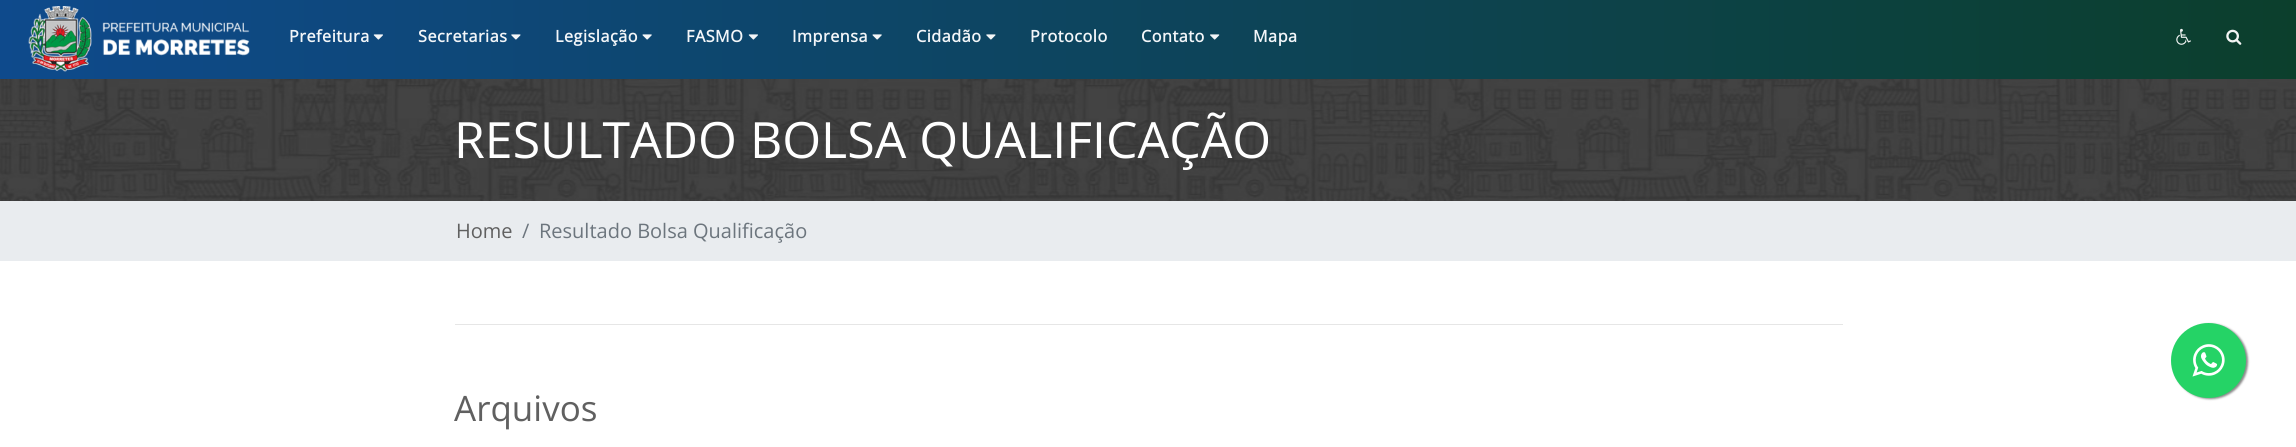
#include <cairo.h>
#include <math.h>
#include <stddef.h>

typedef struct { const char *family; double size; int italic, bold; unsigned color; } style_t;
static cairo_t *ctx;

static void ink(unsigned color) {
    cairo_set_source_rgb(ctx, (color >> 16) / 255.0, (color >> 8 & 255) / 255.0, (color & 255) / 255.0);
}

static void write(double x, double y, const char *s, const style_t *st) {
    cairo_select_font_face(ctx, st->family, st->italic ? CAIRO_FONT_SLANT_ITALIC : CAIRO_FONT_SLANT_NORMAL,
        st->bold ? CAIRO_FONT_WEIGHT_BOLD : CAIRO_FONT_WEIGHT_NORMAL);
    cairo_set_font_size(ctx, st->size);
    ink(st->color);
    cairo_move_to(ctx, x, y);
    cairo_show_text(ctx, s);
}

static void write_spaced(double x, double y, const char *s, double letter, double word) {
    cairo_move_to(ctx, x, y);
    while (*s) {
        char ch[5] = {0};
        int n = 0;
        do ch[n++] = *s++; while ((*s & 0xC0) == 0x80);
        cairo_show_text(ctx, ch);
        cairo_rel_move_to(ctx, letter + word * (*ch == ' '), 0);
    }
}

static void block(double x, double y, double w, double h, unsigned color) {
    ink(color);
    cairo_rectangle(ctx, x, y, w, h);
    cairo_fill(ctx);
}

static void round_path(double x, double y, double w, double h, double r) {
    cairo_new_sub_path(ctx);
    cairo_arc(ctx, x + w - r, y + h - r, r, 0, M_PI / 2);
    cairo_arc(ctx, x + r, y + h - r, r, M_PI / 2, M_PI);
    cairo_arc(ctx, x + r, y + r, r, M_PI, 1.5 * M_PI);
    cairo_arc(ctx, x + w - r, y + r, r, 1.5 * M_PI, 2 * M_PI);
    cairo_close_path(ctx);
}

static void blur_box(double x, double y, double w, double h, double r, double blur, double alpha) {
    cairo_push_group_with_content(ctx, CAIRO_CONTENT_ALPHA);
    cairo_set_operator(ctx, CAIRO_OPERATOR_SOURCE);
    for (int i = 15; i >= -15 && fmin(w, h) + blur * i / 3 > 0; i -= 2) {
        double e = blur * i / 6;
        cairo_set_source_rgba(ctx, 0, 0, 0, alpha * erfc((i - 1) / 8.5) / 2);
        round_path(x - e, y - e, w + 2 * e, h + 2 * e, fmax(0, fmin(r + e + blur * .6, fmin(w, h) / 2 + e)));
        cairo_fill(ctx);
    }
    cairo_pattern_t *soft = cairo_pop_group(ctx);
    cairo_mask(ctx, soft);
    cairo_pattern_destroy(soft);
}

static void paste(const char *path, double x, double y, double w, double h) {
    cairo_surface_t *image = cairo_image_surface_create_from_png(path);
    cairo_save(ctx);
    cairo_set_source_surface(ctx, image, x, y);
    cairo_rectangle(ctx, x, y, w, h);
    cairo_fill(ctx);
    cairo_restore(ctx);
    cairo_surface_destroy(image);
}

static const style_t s1 = {"Open Sans", 50, 0, 0, 0xffffff};
static const style_t s2 = {"Open Sans", 20, 0, 0, 0x606060};
static const style_t s3 = {"Open Sans", 20, 0, 0, 0x6c757d};
static const style_t s4 = {"Open Sans", 35, 0, 0, 0x606060};

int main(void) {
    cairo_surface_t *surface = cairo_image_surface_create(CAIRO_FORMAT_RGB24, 2296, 447);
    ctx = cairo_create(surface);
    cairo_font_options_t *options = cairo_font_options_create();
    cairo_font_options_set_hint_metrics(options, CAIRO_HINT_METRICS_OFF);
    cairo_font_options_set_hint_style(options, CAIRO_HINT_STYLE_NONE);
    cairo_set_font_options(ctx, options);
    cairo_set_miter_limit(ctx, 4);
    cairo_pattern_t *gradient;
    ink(0xffffff);
    cairo_paint(ctx);
    gradient = cairo_pattern_create_linear(0, 39, 2296, 39);
    cairo_pattern_add_color_stop_rgba(gradient, 0, 0.055, 0.29, 0.549, 1);
    cairo_pattern_add_color_stop_rgba(gradient, 1, 0.047, 0.247, 0.173, 1);
    cairo_set_source(ctx, gradient);
    cairo_pattern_destroy(gradient);
    cairo_rectangle(ctx, 0, 0, 2296, 79);
    cairo_fill(ctx);
    paste("pic1.png", 28, 6, 222, 66);
    cairo_select_font_face(ctx, "Open Sans", CAIRO_FONT_SLANT_NORMAL, CAIRO_FONT_WEIGHT_BOLD);
    cairo_set_font_size(ctx, 16.25);
    ink(0xf3f6f9);
    write_spaced(289, 42, "Prefeitura", 0.5, 0);
    paste("pic2.png", 373, 34, 10, 6);
    write_spaced(418, 42, "Secretarias", 0.5, 0);
    paste("pic3.png", 511, 34, 10, 6);
    write_spaced(555, 42, "Legislação", 0.5, 0);
    paste("pic4.png", 642, 34, 10, 6);
    write_spaced(686, 42, "FASMO", 0.5, 0);
    paste("pic5.png", 748, 34, 10, 6);
    write_spaced(792, 42, "Imprensa", 0.5, 0);
    paste("pic6.png", 872, 34, 10, 6);
    write_spaced(916, 42, "Cidadão", 0.5, 0);
    paste("pic7.png", 986, 34, 10, 6);
    write_spaced(1030, 42, "Protocolo", 0.5, 0);
    write_spaced(1141, 42, "Contato", 0.5, 0);
    paste("pic8.png", 1210, 34, 10, 6);
    write_spaced(1253, 42, "Mapa", 0.5, 0);
    paste("pic9.png", 2176, 28, 15, 17);
    paste("pic10.png", 2226, 29, 16, 16);
    paste("pic11.png", 0, 79, 2296, 122);
    write(454, 158, "RESULTADO BOLSA QUALIFICAÇÃO", &s1);
    block(0, 201, 2296, 60, 0xe9ecef);
    write(456, 238, "Home", &s2);
    write(522, 238, "/", &s3);
    write(539, 238, "Resultado Bolsa Qualificação", &s3);
    block(455, 324, 1388, 1, 0xe6e6e6);
    write(454, 421, "Arquivos", &s4);
    ink(0x888888);
    blur_box(2173, 324, 75, 75, 37.5, 1, 1);
    ink(0x25d366);
    cairo_arc(ctx, 2208.5, 360.5, 37.5, 0, 2 * M_PI);
    cairo_fill(ctx);
    paste("pic12.png", 2192, 344, 33, 33);
    cairo_surface_write_to_png(surface, "screenshot.png");
    cairo_font_options_destroy(options);
    cairo_destroy(ctx);
    cairo_surface_destroy(surface);
    return 0;
}
